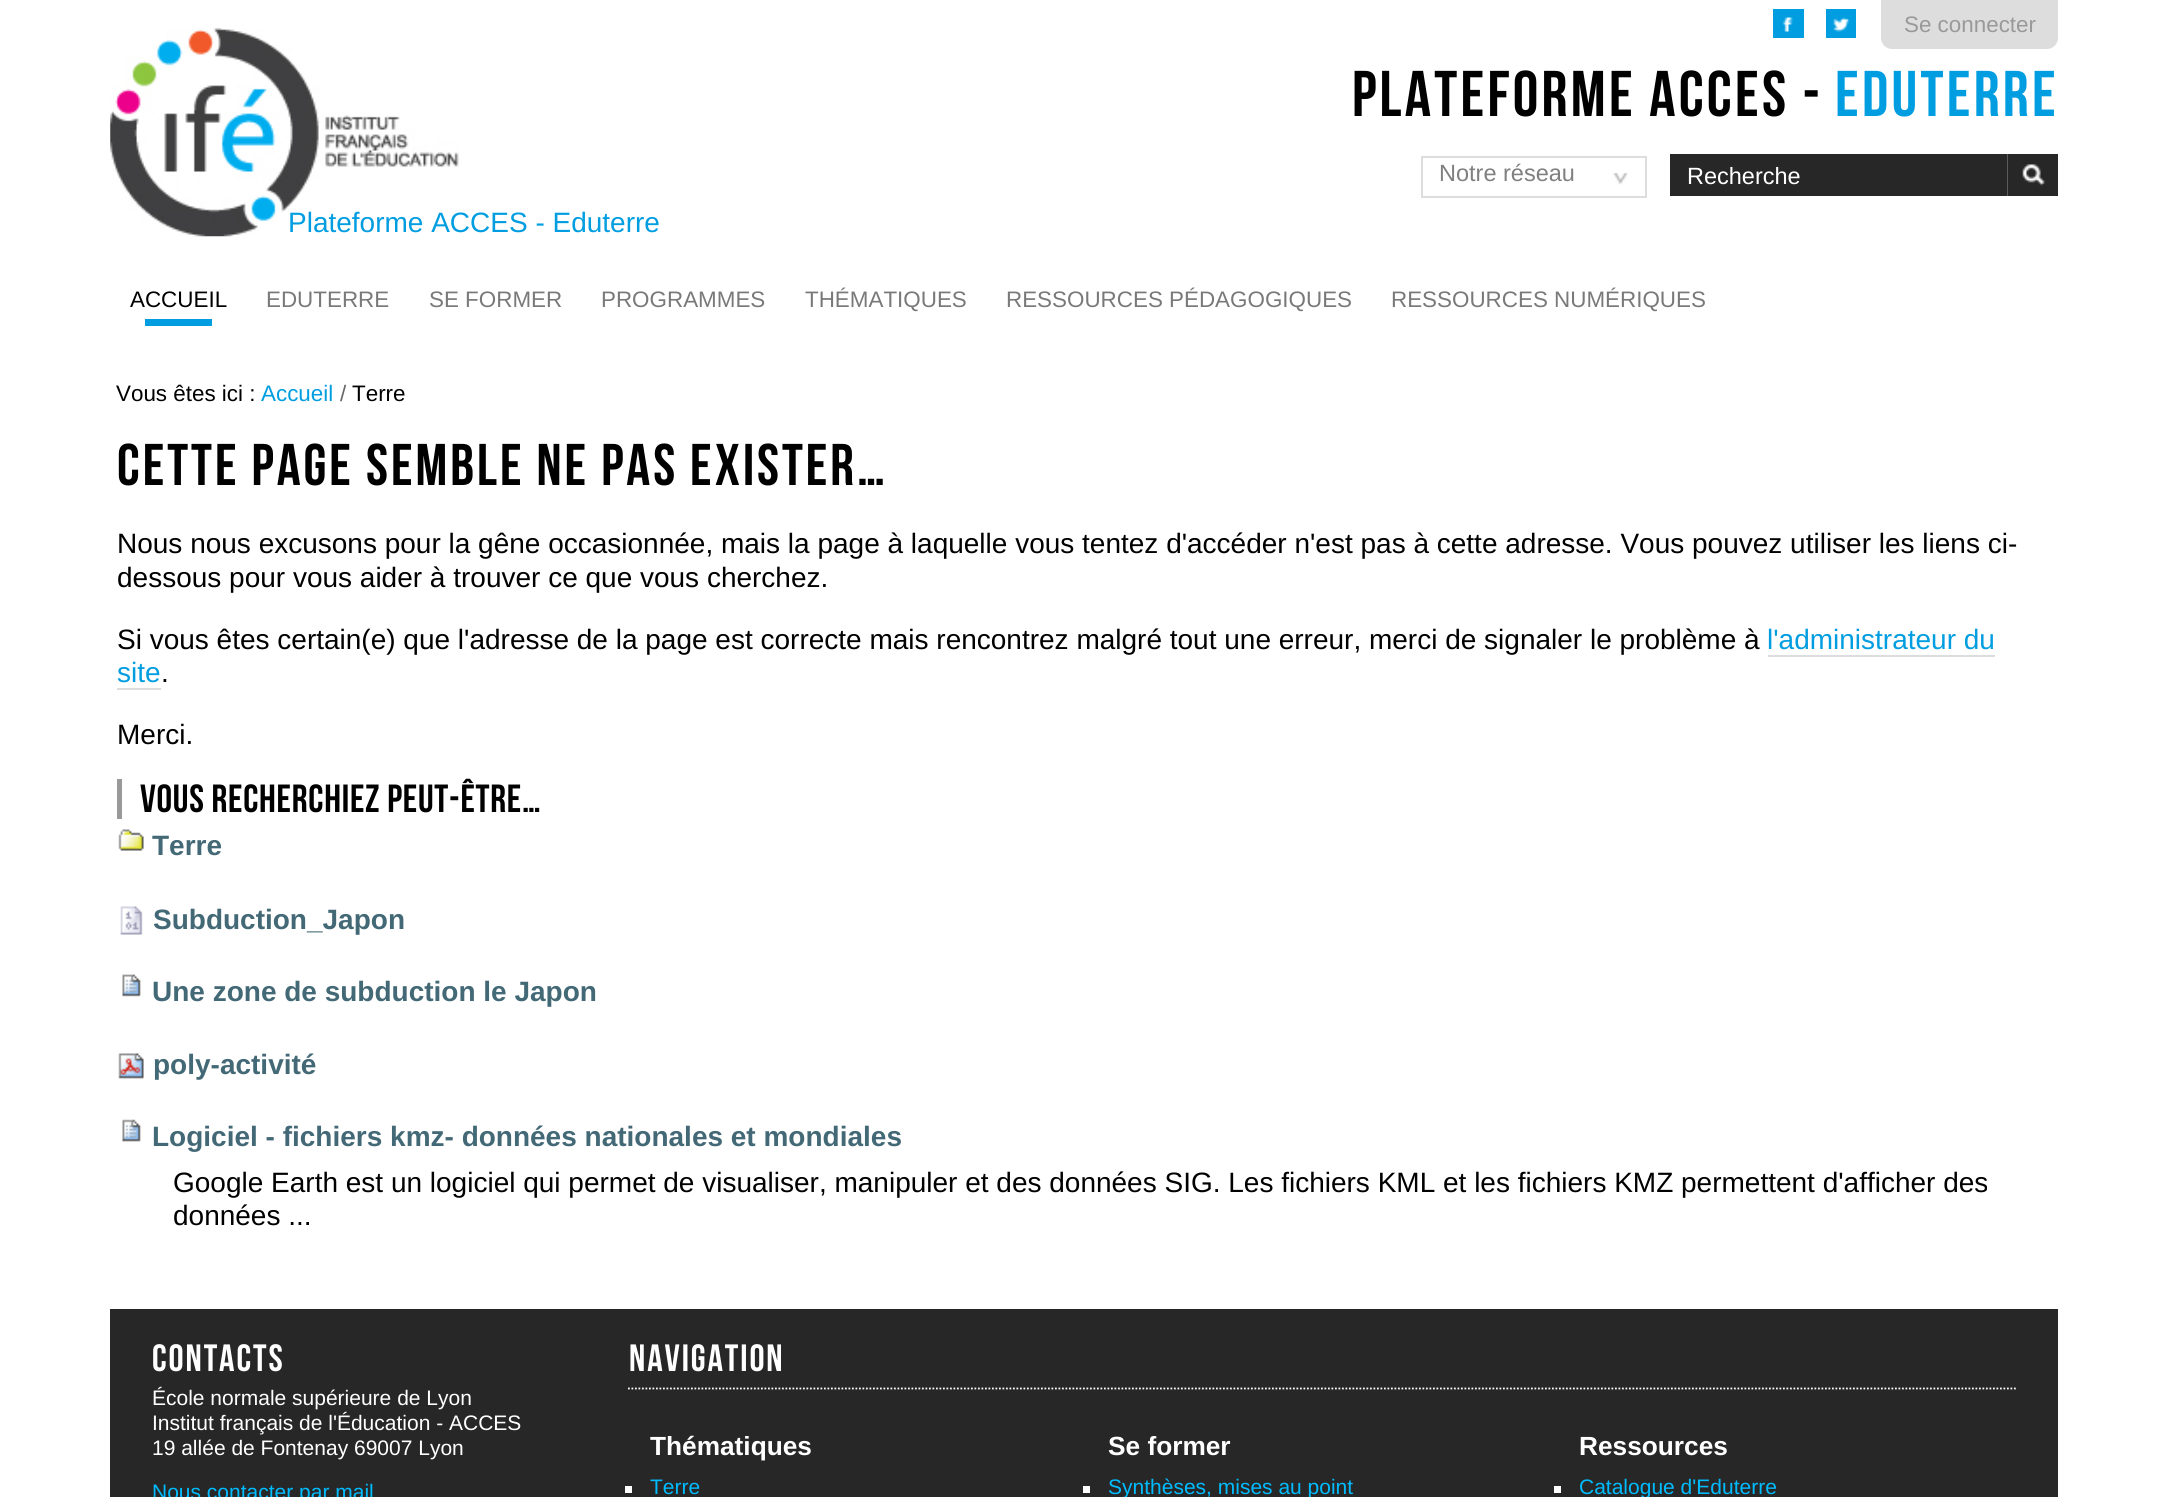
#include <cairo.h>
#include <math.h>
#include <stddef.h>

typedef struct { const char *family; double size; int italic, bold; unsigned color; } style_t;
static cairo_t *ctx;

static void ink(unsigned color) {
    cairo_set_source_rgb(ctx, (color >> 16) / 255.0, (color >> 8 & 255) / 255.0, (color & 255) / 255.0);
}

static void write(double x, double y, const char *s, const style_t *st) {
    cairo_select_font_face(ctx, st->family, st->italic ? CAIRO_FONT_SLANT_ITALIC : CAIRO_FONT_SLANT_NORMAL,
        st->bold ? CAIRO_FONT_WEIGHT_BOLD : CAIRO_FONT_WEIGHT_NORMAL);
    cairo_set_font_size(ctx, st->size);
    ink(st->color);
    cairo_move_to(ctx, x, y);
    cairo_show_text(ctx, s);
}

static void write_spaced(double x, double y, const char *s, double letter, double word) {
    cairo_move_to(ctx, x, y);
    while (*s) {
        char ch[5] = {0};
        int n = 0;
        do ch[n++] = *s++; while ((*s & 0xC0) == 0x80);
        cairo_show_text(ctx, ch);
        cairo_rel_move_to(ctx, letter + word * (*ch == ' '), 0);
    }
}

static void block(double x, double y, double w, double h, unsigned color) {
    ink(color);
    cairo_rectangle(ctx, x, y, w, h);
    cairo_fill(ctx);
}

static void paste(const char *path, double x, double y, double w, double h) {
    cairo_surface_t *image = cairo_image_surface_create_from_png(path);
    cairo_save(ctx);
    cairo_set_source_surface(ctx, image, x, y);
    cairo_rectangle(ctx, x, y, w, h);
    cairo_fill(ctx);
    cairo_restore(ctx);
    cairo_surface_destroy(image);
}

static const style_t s1 = {"Liberation Sans", 22.4, 0, 0, 0x999999};
static const style_t s2 = {"Liberation Sans", 23.5, 0, 0, 0x808080};
static const style_t s3 = {"Liberation Sans", 23.5, 0, 0, 0xffffff};
static const style_t s4 = {"Liberation Sans", 28, 0, 0, 0x009de0};
static const style_t s5 = {"Liberation Sans", 22.4, 0, 0, 0x000000};
static const style_t s6 = {"Liberation Sans", 22.4, 0, 0, 0x797979};
static const style_t s7 = {"Liberation Sans", 22.4, 0, 0, 0x009de0};
static const style_t s8 = {"Liberation Sans", 22.4, 0, 0, 0x666666};
static const style_t s9 = {"Liberation Sans", 28, 0, 0, 0x000000};
static const style_t s10 = {"Liberation Sans", 28, 0, 1, 0x436976};
static const style_t s11 = {"Liberation Sans", 21, 0, 0, 0xffffff};
static const style_t s12 = {"Liberation Sans", 21, 0, 0, 0x00bcff};
static const style_t s13 = {"Liberation Sans", 26.25, 0, 1, 0xffffff};

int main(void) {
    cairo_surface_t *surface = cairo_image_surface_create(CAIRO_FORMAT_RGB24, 2167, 1497);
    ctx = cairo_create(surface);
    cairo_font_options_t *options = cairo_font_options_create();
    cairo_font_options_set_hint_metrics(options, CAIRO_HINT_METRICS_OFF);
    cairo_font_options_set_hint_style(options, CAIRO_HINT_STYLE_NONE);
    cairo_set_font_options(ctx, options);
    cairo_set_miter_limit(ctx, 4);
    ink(0xffffff);
    cairo_paint(ctx);
    block(1773, 9, 31, 29, 0x009de0);
    block(1826, 9, 30, 29, 0x009de0);
    paste("pic1.png", 1782, 17, 11, 15);
    paste("pic2.png", 1833, 17, 17, 15);
    ink(0xdddddd);
    cairo_new_path(ctx);
    cairo_move_to(ctx, 1881, 0);
    cairo_line_to(ctx, 2058, 0);
    cairo_line_to(ctx, 2058, 38);
    cairo_curve_to(ctx, 2058, 44, 2053, 49, 2047, 49);
    cairo_line_to(ctx, 1892, 49);
    cairo_curve_to(ctx, 1886, 49, 1881, 44, 1881, 38);
    cairo_close_path(ctx);
    cairo_fill(ctx);
    write(1904, 32, "Se connecter", &s1);
    paste("pic3.png", 110, 28, 349, 209);
    cairo_select_font_face(ctx, "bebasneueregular", CAIRO_FONT_SLANT_NORMAL, CAIRO_FONT_WEIGHT_NORMAL);
    cairo_set_font_size(ctx, 64.5);
    ink(0x000000);
    write_spaced(1352, 116, "Plateforme ACCES -", 3.25, 0);
    ink(0x009de0);
    write_spaced(1835, 116, "Eduterre", 3.25, 0);
    paste("pic4.png", 1613, 173, 15, 12);
    cairo_rectangle(ctx, 1422, 157, 224, 40);
    ink(0xdddddd);
    cairo_stroke(ctx);
    write(1439, 181, "Notre réseau", &s2);
    block(1670, 154, 337, 42, 0x272727);
    write(1687, 184, "Recherche", &s3);
    paste("pic5.png", 2007, 154, 51, 42);
    write(288, 232, "Plateforme ACCES - Eduterre", &s4);
    write(130, 307, "ACCUEIL", &s5);
    block(145, 319, 67, 7, 0x009de0);
    write(266, 307, "EDUTERRE", &s6);
    write(429, 307, "SE FORMER", &s6);
    write(601, 307, "PROGRAMMES", &s6);
    write(805, 307, "THÉMATIQUES", &s6);
    write(1006, 307, "RESSOURCES PÉDAGOGIQUES", &s6);
    write(1391, 307, "RESSOURCES NUMÉRIQUES", &s6);
    write(116, 401, "Vous êtes ici :", &s5);
    write(261, 401, "Accueil", &s7);
    write(340, 401, "/", &s8);
    write(352, 401, "Terre", &s5);
    cairo_select_font_face(ctx, "bebasneueregular", CAIRO_FONT_SLANT_NORMAL, CAIRO_FONT_WEIGHT_NORMAL);
    cairo_set_font_size(ctx, 58.75);
    write_spaced(117, 485, "Cette page semble ne pas exister…", 2.95, 0);
    write(117, 553, "Nous nous excusons pour la gêne occasionnée, mais la page à laquelle vous tentez d'accéder n'est pas à cette adresse. Vous pouvez utiliser les liens ci-", &s9);
    write(117, 587, "dessous pour vous aider à trouver ce que vous cherchez.", &s9);
    write(117, 649, "Si vous êtes certain(e) que l'adresse de la page est correcte mais rencontrez malgré tout une erreur, merci de signaler le problème à", &s9);
    write(1767, 649, "l'administrateur du", &s4);
    block(1768, 655, 227, 2, 0xdddddd);
    write(117, 682, "site", &s4);
    block(117, 688, 44, 2, 0xdddddd);
    write(161, 682, ".", &s9);
    write(117, 744, "Merci.", &s9);
    block(117, 779, 5, 40, 0x999999);
    cairo_select_font_face(ctx, "bebasneueregular", CAIRO_FONT_SLANT_NORMAL, CAIRO_FONT_WEIGHT_NORMAL);
    cairo_set_font_size(ctx, 39.25);
    ink(0x000000);
    write_spaced(140, 812, "Vous recherchiez peut-être…", 0.75, 0);
    paste("pic6.png", 118, 829, 26, 22);
    write(152, 855, "Terre", &s10);
    paste("pic7.png", 120, 906, 23, 29);
    write(153, 929, "Subduction_Japon", &s10);
    paste("pic8.png", 122, 974, 19, 23);
    write(152, 1001, "Une zone de subduction le Japon", &s10);
    paste("pic9.png", 118, 1053, 26, 26);
    write(153, 1074, "poly-activité", &s10);
    paste("pic10.png", 122, 1119, 19, 23);
    write(152, 1146, "Logiciel - fichiers kmz- données nationales et mondiales", &s10);
    write(173, 1192, "Google Earth est un logiciel qui permet de visualiser, manipuler et des données SIG. Les fichiers KML et les fichiers KMZ permettent d'afficher des", &s9);
    write(173, 1225, "données ...", &s9);
    block(110, 1309, 1948, 188, 0x272727);
    cairo_select_font_face(ctx, "bebasneueregular", CAIRO_FONT_SLANT_NORMAL, CAIRO_FONT_WEIGHT_NORMAL);
    cairo_set_font_size(ctx, 38);
    ink(0xffffff);
    write_spaced(152, 1371, "Contacts", 1.9, 0);
    write(152, 1405, "École normale supérieure de Lyon", &s11);
    write(152, 1430, "Institut français de l'Éducation - ACCES", &s11);
    write(152, 1455, "19 allée de Fontenay 69007 Lyon", &s11);
    write(152, 1499, "Nous contacter par mail", &s12);
    cairo_new_path(ctx);
    cairo_move_to(ctx, 628, 1388.5);
    cairo_line_to(ctx, 2016, 1388.5);
    ink(0xffffff);
    cairo_set_line_width(ctx, 1.8);
    cairo_set_dash(ctx, (double[]){1.75, 1.75}, 2, 0);
    cairo_stroke(ctx);
    cairo_select_font_face(ctx, "bebasneueregular", CAIRO_FONT_SLANT_NORMAL, CAIRO_FONT_WEIGHT_NORMAL);
    cairo_set_font_size(ctx, 38);
    write_spaced(629, 1371, "Navigation", 1.9, 0);
    write(650, 1455, "Thématiques", &s13);
    block(625, 1486, 7, 7, 0xffffff);
    write(650, 1494, "Terre", &s12);
    write(1108, 1455, "Se former", &s13);
    block(1083, 1486, 7, 7, 0xffffff);
    write(1108, 1494, "Synthèses, mises au point", &s12);
    write(1579, 1455, "Ressources", &s13);
    block(1554, 1486, 7, 7, 0xffffff);
    write(1579, 1494, "Catalogue d'Eduterre", &s12);
    cairo_surface_write_to_png(surface, "screenshot.png");
    cairo_font_options_destroy(options);
    cairo_destroy(ctx);
    cairo_surface_destroy(surface);
    return 0;
}
